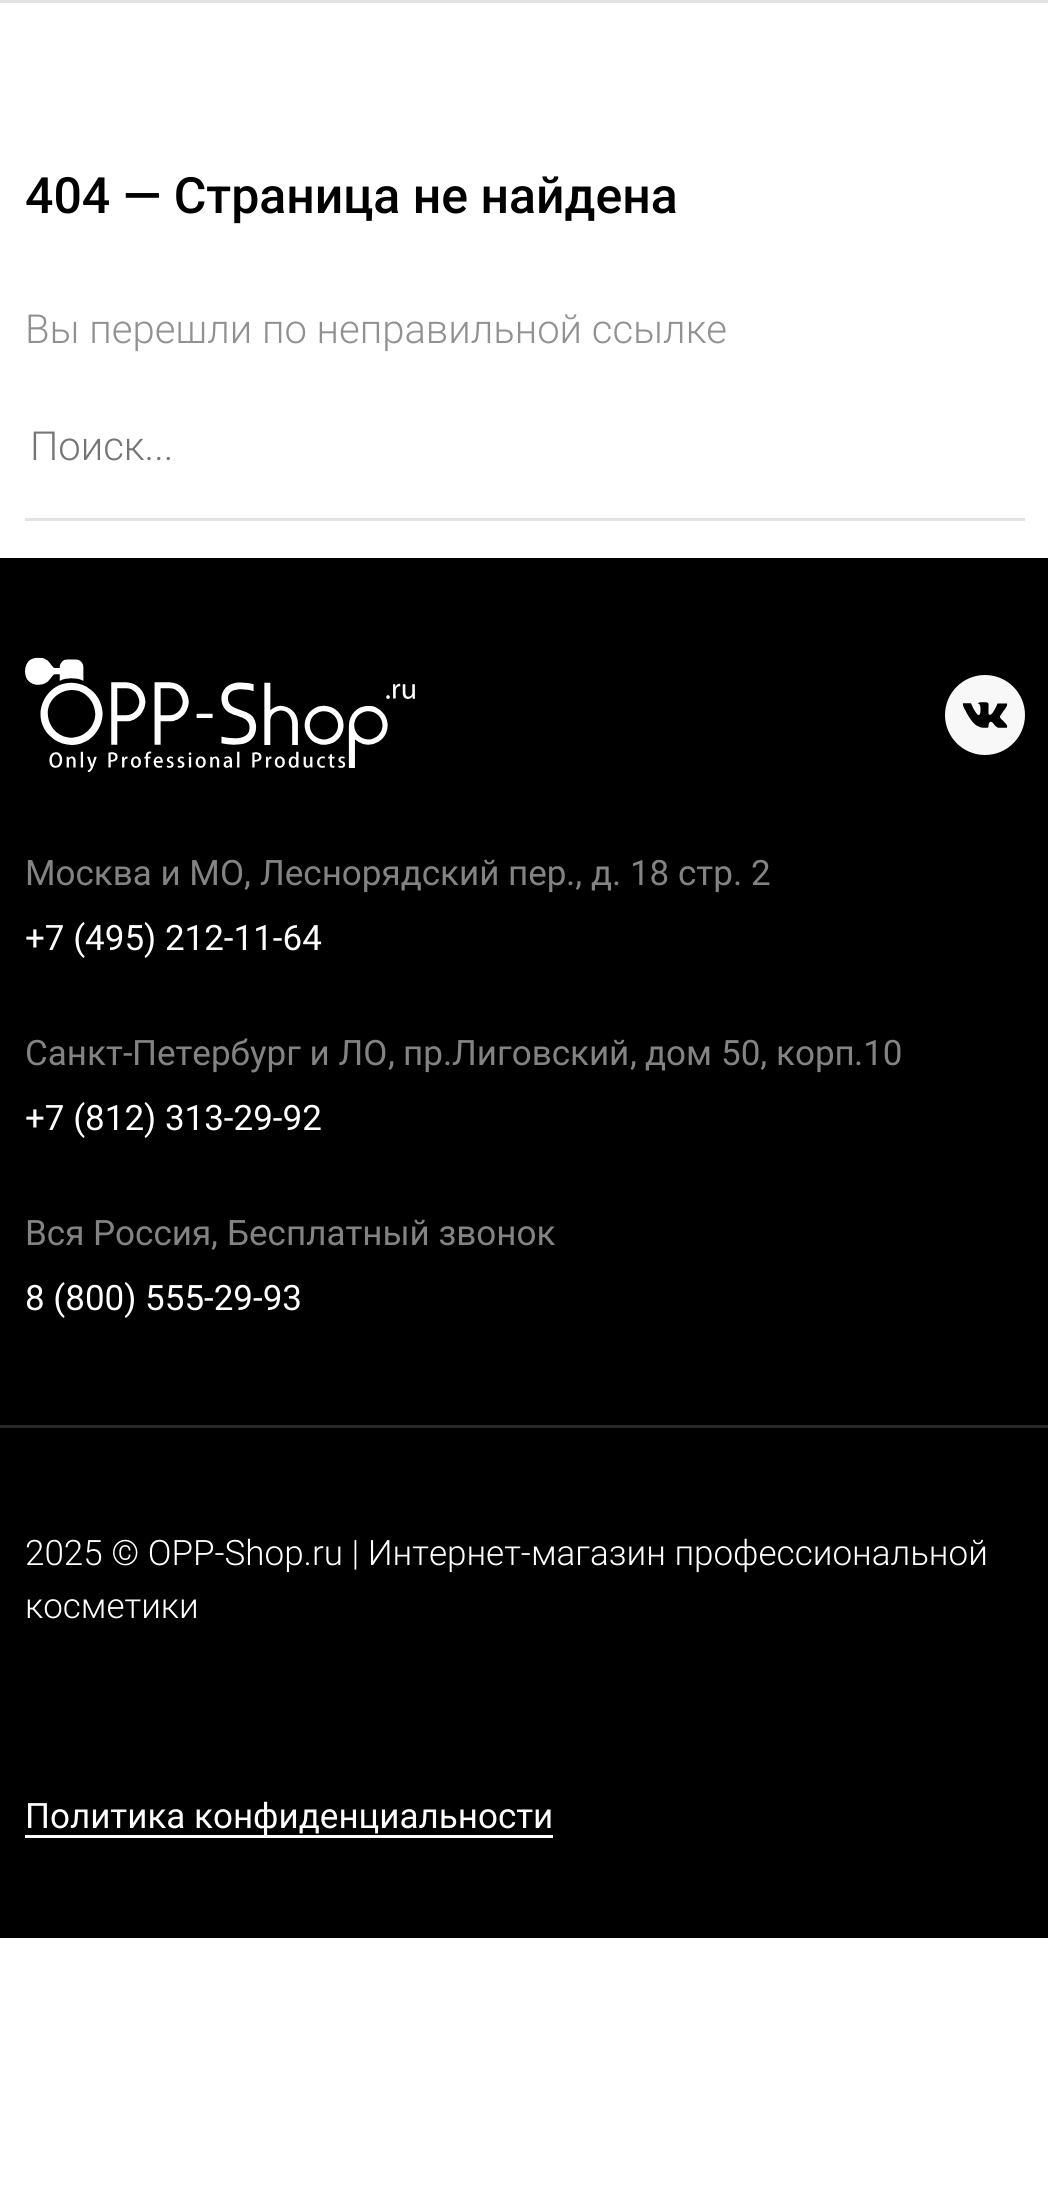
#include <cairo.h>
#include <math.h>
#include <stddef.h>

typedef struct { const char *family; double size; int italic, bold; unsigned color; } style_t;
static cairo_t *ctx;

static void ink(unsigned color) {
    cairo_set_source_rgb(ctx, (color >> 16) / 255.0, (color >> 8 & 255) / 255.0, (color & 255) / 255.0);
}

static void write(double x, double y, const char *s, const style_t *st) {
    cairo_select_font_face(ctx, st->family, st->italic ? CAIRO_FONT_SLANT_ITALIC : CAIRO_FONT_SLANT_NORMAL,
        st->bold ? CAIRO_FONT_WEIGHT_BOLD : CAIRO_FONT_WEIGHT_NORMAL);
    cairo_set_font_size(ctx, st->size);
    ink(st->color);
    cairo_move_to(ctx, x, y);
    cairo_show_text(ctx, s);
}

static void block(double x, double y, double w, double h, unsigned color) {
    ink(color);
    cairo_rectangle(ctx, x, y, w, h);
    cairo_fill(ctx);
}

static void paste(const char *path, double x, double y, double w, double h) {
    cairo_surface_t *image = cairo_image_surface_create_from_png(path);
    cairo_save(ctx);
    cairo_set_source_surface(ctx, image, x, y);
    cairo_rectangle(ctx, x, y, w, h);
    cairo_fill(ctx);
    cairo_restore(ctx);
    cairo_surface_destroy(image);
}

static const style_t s1 = {"Roboto Medium", 50, 0, 0, 0x000000};
static const style_t s2 = {"Roboto Light", 40, 0, 0, 0x919191};
static const style_t s3 = {"Roboto Light", 40, 0, 0, 0x757575};
static const style_t s4 = {"Roboto", 35, 0, 0, 0x838383};
static const style_t s5 = {"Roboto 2", 35, 0, 0, 0x838383};
static const style_t s6 = {"Roboto 2", 35, 0, 0, 0xffffff};
static const style_t s7 = {"Roboto Light", 35, 0, 0, 0xffffff};
static const style_t s8 = {"Roboto", 35, 0, 0, 0xffffff};

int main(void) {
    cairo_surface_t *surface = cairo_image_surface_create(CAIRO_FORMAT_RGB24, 1048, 2198);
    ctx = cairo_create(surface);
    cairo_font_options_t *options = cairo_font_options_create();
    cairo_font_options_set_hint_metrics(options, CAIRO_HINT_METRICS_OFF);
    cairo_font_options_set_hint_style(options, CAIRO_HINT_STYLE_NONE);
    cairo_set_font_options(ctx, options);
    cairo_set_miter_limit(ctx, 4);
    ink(0xffffff);
    cairo_paint(ctx);
    block(0, 0, 1048, 3, 0xe3e3e3);
    write(25, 213, "404 — Страница не найдена", &s1);
    write(25, 343, "Вы перешли по неправильной ссылке", &s2);
    block(25, 518, 1000, 3, 0xe3e3e3);
    write(30, 460, "Поиск...", &s3);
    block(0, 558, 1048, 1380, 0x000000);
    paste("pic1.png", 25, 657, 390, 116);
    ink(0xf8f8f8);
    cairo_arc(ctx, 985, 715, 40, 0, 2 * M_PI);
    cairo_fill(ctx);
    paste("pic2.png", 962, 702, 46, 26);
    write(25, 885, "Москва и МО", &s4);
    write(244, 885, ",", &s5);
    write(260, 885, "Леснорядский пер", &s4);
    write(566, 885, ".,", &s5);
    write(591, 885, "д", &s4);
    write(612, 885, ". 18", &s5);
    write(678, 885, "стр", &s4);
    write(733, 885, ". 2", &s5);
    write(25, 950, "+7 (495) 212-11-64", &s6);
    write(25, 1065, "Санкт", &s4);
    write(123, 1065, "-", &s5);
    write(132, 1065, "Петербург и ЛО", &s4);
    write(403, 1065, "пр", &s4);
    write(452, 1065, "Лиговский", &s4);
    write(645, 1065, "дом", &s4);
    write(721, 1065, "50,", &s5);
    write(776, 1065, "корп", &s4);
    write(854, 1065, ".10", &s5);
    write(388, 1065, ",", &s5);
    write(443, 1065, ".", &s5);
    write(630, 1065, ",", &s5);
    write(25, 1130, "+7 (812) 313-29-92", &s6);
    write(25, 1245, "Вся Россия", &s4);
    write(211, 1245, ",", &s5);
    write(227, 1245, "Бесплатный звонок", &s4);
    write(25, 1310, "8 (800) 555-29-93", &s6);
    block(0, 1425, 1048, 3, 0x292929);
    write(25, 1565, "2025 © OPP-Shop.ru | Интернет-магазин профессиональной", &s7);
    write(25, 1618, "косметики", &s7);
    block(25, 1835, 528, 3, 0xffffff);
    write(25, 1828, "Политика конфиденциальности", &s8);
    cairo_surface_write_to_png(surface, "screenshot.png");
    cairo_font_options_destroy(options);
    cairo_destroy(ctx);
    cairo_surface_destroy(surface);
    return 0;
}
